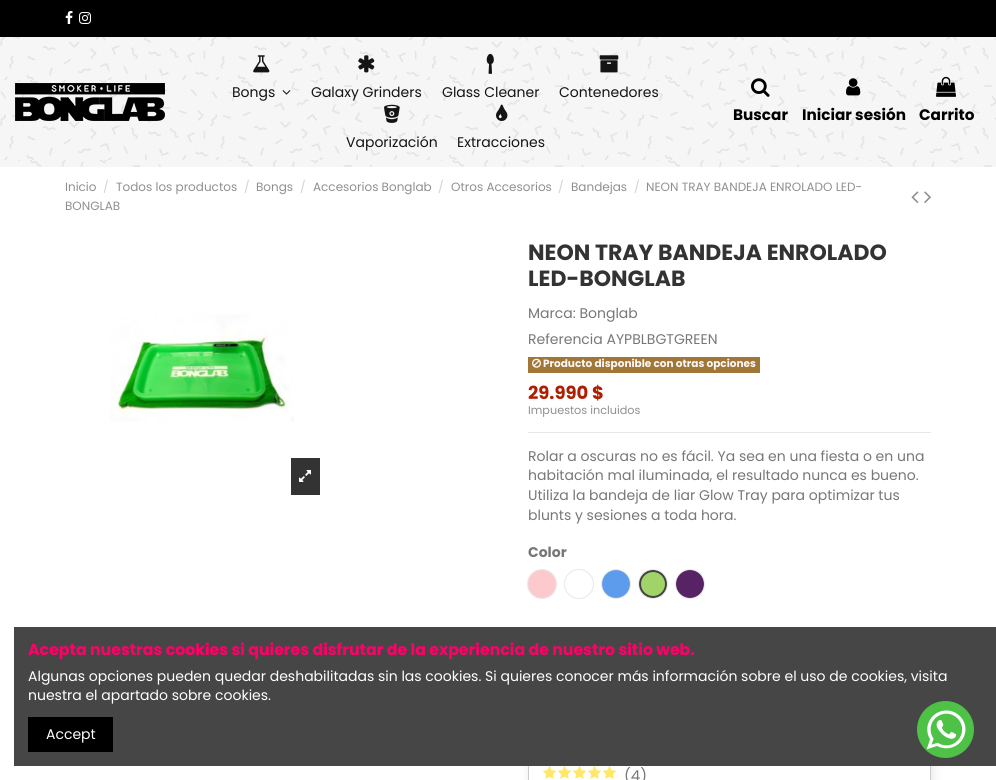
#include <cairo.h>
#include <math.h>
#include <stddef.h>

typedef struct { const char *family; double size; int italic, bold; unsigned color; } style_t;
static cairo_t *ctx;

static void ink(unsigned color) {
    cairo_set_source_rgb(ctx, (color >> 16) / 255.0, (color >> 8 & 255) / 255.0, (color & 255) / 255.0);
}

static void write(double x, double y, const char *s, const style_t *st) {
    cairo_select_font_face(ctx, st->family, st->italic ? CAIRO_FONT_SLANT_ITALIC : CAIRO_FONT_SLANT_NORMAL,
        st->bold ? CAIRO_FONT_WEIGHT_BOLD : CAIRO_FONT_WEIGHT_NORMAL);
    cairo_set_font_size(ctx, st->size);
    ink(st->color);
    cairo_move_to(ctx, x, y);
    cairo_show_text(ctx, s);
}

static void block(double x, double y, double w, double h, unsigned color) {
    ink(color);
    cairo_rectangle(ctx, x, y, w, h);
    cairo_fill(ctx);
}

static void round_path(double x, double y, double w, double h, double r) {
    cairo_new_sub_path(ctx);
    cairo_arc(ctx, x + w - r, y + h - r, r, 0, M_PI / 2);
    cairo_arc(ctx, x + r, y + h - r, r, M_PI / 2, M_PI);
    cairo_arc(ctx, x + r, y + r, r, M_PI, 1.5 * M_PI);
    cairo_arc(ctx, x + w - r, y + r, r, 1.5 * M_PI, 2 * M_PI);
    cairo_close_path(ctx);
}

static void blur_box(double x, double y, double w, double h, double r, double blur, double alpha) {
    cairo_push_group_with_content(ctx, CAIRO_CONTENT_ALPHA);
    cairo_set_operator(ctx, CAIRO_OPERATOR_SOURCE);
    for (int i = 15; i >= -15 && fmin(w, h) + blur * i / 3 > 0; i -= 2) {
        double e = blur * i / 6;
        cairo_set_source_rgba(ctx, 0, 0, 0, alpha * erfc((i - 1) / 8.5) / 2);
        round_path(x - e, y - e, w + 2 * e, h + 2 * e, fmax(0, fmin(r + e + blur * .6, fmin(w, h) / 2 + e)));
        cairo_fill(ctx);
    }
    cairo_pattern_t *soft = cairo_pop_group(ctx);
    cairo_mask(ctx, soft);
    cairo_pattern_destroy(soft);
}

static void paste(const char *path, double x, double y, double w, double h) {
    cairo_surface_t *image = cairo_image_surface_create_from_png(path);
    cairo_save(ctx);
    cairo_set_source_surface(ctx, image, x, y);
    cairo_rectangle(ctx, x, y, w, h);
    cairo_fill(ctx);
    cairo_restore(ctx);
    cairo_surface_destroy(image);
}

static const style_t s1 = {"Poppins", 14, 0, 0, 0x141414};
static const style_t s2 = {"Poppins", 15.25, 0, 1, 0x000000};
static const style_t s3 = {"Poppins", 12, 0, 0, 0x8f8f8f};
static const style_t s4 = {"Poppins", 12, 0, 0, 0xd2d2d2};
static const style_t s5 = {"Poppins", 22, 0, 1, 0x333333};
static const style_t s6 = {"Poppins", 14, 0, 0, 0x777777};
static const style_t s7 = {"Poppins", 10.5, 0, 1, 0xfff7f7};
static const style_t s8 = {"Poppins", 18, 0, 1, 0xad1f00};
static const style_t s9 = {"Poppins", 11.25, 0, 0, 0x8f8f8f};
static const style_t s10 = {"Poppins", 14, 0, 1, 0x777777};
static const style_t s11 = {"Poppins", 15, 0, 0, 0x777777};
static const style_t s12 = {"Poppins", 15.75, 0, 1, 0xff0069};
static const style_t s13 = {"Poppins", 14, 0, 0, 0xffffff};

int main(void) {
    cairo_surface_t *surface = cairo_image_surface_create(CAIRO_FORMAT_RGB24, 996, 780);
    ctx = cairo_create(surface);
    cairo_font_options_t *options = cairo_font_options_create();
    cairo_font_options_set_hint_metrics(options, CAIRO_HINT_METRICS_OFF);
    cairo_font_options_set_hint_style(options, CAIRO_HINT_STYLE_NONE);
    cairo_set_font_options(ctx, options);
    cairo_set_miter_limit(ctx, 4);
    ink(0xffffff);
    cairo_paint(ctx);
    paste("pic1.png", 0, 37, 996, 130);
    block(0, 0, 996, 37, 0x000000);
    paste("pic2.png", 65, 11, 8, 13);
    paste("pic3.png", 79, 12, 12, 12);
    paste("pic4.png", 15, 83, 150, 38);
    paste("pic5.png", 253, 55, 17, 18);
    write(232, 97, "Bongs", &s1);
    paste("pic6.png", 282, 90, 9, 5);
    paste("pic7.png", 358, 55, 17, 18);
    write(311, 97, "Galaxy Grinders", &s1);
    paste("pic8.png", 486, 53, 8, 21);
    write(442, 97, "Glass Cleaner", &s1);
    paste("pic9.png", 599, 55, 20, 18);
    write(559, 97, "Contenedores", &s1);
    paste("pic10.png", 384, 104, 16, 19);
    write(346, 147, "Vaporización", &s1);
    paste("pic11.png", 496, 104, 12, 17);
    write(457, 147, "Extracciones", &s1);
    paste("pic12.png", 751, 78, 19, 19);
    write(733, 120, "Buscar", &s2);
    paste("pic13.png", 846, 78, 15, 18);
    write(802, 120, "Iniciar sesión", &s2);
    paste("pic14.png", 936, 76, 20, 21);
    write(919, 120, "Carrito", &s2);
    write(65, 191, "Inicio", &s3);
    write(103, 191, "/", &s4);
    write(116, 191, "Todos los productos", &s3);
    write(244, 191, "/", &s4);
    write(256, 191, "Bongs", &s3);
    write(300, 191, "/", &s4);
    write(313, 191, "Accesorios Bonglab", &s3);
    write(438, 191, "/", &s4);
    write(451, 191, "Otros Accesorios", &s3);
    write(558, 191, "/", &s4);
    write(571, 191, "Bandejas", &s3);
    write(634, 191, "/", &s4);
    write(646, 191, "NEON TRAY BANDEJA ENROLADO LED-", &s3);
    write(65, 210, "BONGLAB", &s3);
    paste("pic15.png", 911, 191, 8, 12);
    paste("pic16.png", 924, 191, 7, 12);
    paste("pic17.png", 110, 314, 184, 108);
    block(291, 458, 29, 37, 0x333333);
    paste("pic18.png", 299, 470, 12, 12);
    block(528, 432, 403, 1, 0xe8e8e8);
    write(528, 260, "NEON TRAY BANDEJA ENROLADO", &s5);
    write(528, 286, "LED-BONGLAB", &s5);
    write(528, 318, "Marca: Bonglab", &s6);
    write(528, 344, "Referencia AYPBLBGTGREEN", &s6);
    block(528, 357, 232, 16, 0xa17738);
    paste("pic19.png", 532, 358, 9, 10);
    write(543, 367, "Producto disponible con otras opciones", &s7);
    write(528, 399, "29.990 $", &s8);
    write(528, 414, "Impuestos incluidos", &s9);
    write(528, 461, "Rolar a oscuras no es fácil. Ya sea en una fiesta o en una", &s6);
    write(528, 480, "habitación mal iluminada, el resultado nunca es bueno.", &s6);
    write(528, 500, "Utiliza la bandeja de liar Glow Tray para optimizar tus", &s6);
    write(528, 520, "blunts y sesiones a toda hora.", &s6);
    write(528, 557, "Color", &s10);
    ink(0xfccacd);
    cairo_new_path(ctx);
    cairo_arc(ctx, 542, 584, 14, 0, 2 * M_PI);
    cairo_fill(ctx);
    cairo_arc(ctx, 542, 584, 14.5, 0, 2 * M_PI);
    cairo_set_source_rgba(ctx, 0.631, 0.631, 0.631, 0.25);
    cairo_set_line_width(ctx, 1);
    cairo_stroke(ctx);
    cairo_arc(ctx, 579, 584, 14.5, 0, 2 * M_PI);
    ink(0xe8e8e8);
    cairo_stroke(ctx);
    ink(0x5d9cec);
    cairo_arc(ctx, 616, 584, 14, 0, 2 * M_PI);
    cairo_fill(ctx);
    cairo_arc(ctx, 616, 584, 14.5, 0, 2 * M_PI);
    cairo_set_source_rgba(ctx, 0.631, 0.631, 0.631, 0.25);
    cairo_stroke(ctx);
    ink(0xa0d468);
    cairo_arc(ctx, 653, 584, 13, 0, 2 * M_PI);
    cairo_fill_preserve(ctx);
    ink(0x414141);
    cairo_set_line_width(ctx, 2);
    cairo_stroke(ctx);
    cairo_arc(ctx, 653, 584, 14.5, 0, 2 * M_PI);
    cairo_set_source_rgba(ctx, 0.631, 0.631, 0.631, 0.25);
    cairo_set_line_width(ctx, 1);
    cairo_stroke(ctx);
    ink(0x572364);
    cairo_arc(ctx, 690, 584, 14, 0, 2 * M_PI);
    cairo_fill(ctx);
    cairo_arc(ctx, 690, 584, 14.5, 0, 2 * M_PI);
    cairo_set_source_rgba(ctx, 0.631, 0.631, 0.631, 0.25);
    cairo_stroke(ctx);
    cairo_save(ctx);
    cairo_set_fill_rule(ctx, CAIRO_FILL_RULE_EVEN_ODD);
    cairo_new_path(ctx);
    cairo_move_to(ctx, 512, 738);
    cairo_line_to(ctx, 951, 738);
    cairo_line_to(ctx, 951, 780);
    cairo_line_to(ctx, 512, 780);
    cairo_close_path(ctx);
    cairo_move_to(ctx, 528, 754);
    cairo_line_to(ctx, 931, 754);
    cairo_line_to(ctx, 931, 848);
    cairo_line_to(ctx, 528, 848);
    cairo_close_path(ctx);
    cairo_clip(ctx);
    ink(0x000000);
    blur_box(530, 756, 403, 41, 0, 5.5, 0.1);
    cairo_restore(ctx);
    cairo_rectangle(ctx, 528.5, 754.5, 402, 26);
    ink(0xcccccc);
    cairo_stroke(ctx);
    paste("pic20.png", 543, 766, 13, 13);
    paste("pic20.png", 558, 766, 13, 13);
    paste("pic20.png", 573, 766, 13, 13);
    paste("pic20.png", 588, 766, 13, 13);
    paste("pic20.png", 603, 766, 13, 13);
    write(624, 781, "(4)", &s11);
    block(14, 627, 982, 139, 0x464646);
    write(28, 655, "Acepta nuestras cookies si quieres disfrutar de la experiencia de nuestro sitio web.", &s12);
    write(28, 681, "Algunas opciones pueden quedar deshabilitadas sin las cookies. Si quieres conocer más información sobre el uso de cookies, visita", &s13);
    write(28, 700, "nuestra el apartado sobre cookies.", &s13);
    block(28, 717, 85, 35, 0x000000);
    write(46, 739, "Accept", &s13);
    paste("pic21.png", 917, 701, 57, 57);
    cairo_surface_write_to_png(surface, "screenshot.png");
    cairo_font_options_destroy(options);
    cairo_destroy(ctx);
    cairo_surface_destroy(surface);
    return 0;
}
